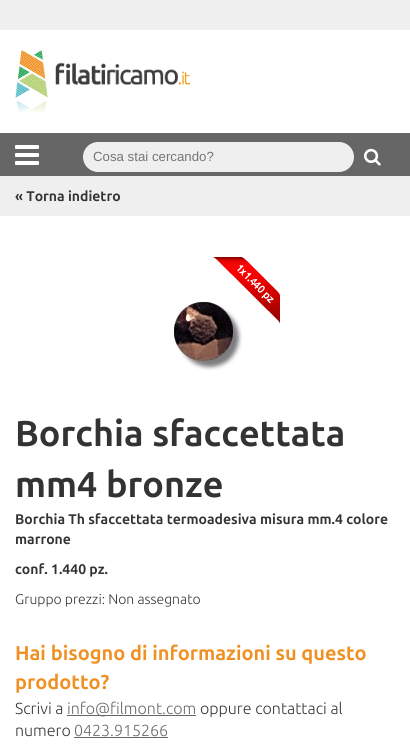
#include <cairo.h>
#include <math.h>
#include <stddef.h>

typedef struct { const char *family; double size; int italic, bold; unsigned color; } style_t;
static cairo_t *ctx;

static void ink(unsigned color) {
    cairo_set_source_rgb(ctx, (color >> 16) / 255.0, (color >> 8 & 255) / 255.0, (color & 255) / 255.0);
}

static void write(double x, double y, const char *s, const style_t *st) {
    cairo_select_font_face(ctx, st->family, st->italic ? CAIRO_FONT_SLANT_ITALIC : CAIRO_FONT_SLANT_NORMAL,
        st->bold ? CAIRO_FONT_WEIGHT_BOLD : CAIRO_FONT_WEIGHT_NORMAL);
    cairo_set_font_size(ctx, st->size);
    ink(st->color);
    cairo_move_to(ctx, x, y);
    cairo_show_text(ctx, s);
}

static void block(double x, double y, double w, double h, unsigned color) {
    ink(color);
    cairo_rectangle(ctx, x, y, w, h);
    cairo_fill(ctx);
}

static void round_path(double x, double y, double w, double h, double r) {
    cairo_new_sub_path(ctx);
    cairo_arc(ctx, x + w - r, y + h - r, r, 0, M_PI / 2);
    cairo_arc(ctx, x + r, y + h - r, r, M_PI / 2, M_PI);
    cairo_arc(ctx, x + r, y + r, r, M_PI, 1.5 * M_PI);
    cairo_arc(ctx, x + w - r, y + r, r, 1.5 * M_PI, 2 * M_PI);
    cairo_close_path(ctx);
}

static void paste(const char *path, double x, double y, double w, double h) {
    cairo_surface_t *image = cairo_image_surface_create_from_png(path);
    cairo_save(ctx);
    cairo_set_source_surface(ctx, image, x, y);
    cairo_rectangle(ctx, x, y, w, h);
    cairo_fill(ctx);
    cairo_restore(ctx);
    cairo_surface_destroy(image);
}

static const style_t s1 = {"Liberation Sans", 13.25, 0, 0, 0x757575};
static const style_t s2 = {"Ubuntu", 14, 0, 1, 0x333333};
static const style_t s3 = {"Ubuntu", 36, 0, 1, 0x333333};
static const style_t s4 = {"Ubuntu Light", 14, 0, 0, 0x333333};
static const style_t s5 = {"Ubuntu", 20, 0, 1, 0xf09023};
static const style_t s6 = {"Ubuntu Light", 16, 0, 0, 0x333333};
static const style_t s7 = {"Ubuntu Light", 16, 0, 0, 0x666666};

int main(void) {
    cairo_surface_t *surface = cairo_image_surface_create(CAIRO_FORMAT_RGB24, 410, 752);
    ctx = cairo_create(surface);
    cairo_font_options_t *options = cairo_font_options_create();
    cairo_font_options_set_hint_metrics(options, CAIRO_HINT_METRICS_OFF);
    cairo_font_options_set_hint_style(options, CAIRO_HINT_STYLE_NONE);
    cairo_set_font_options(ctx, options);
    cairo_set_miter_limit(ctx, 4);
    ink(0x666666);
    cairo_paint(ctx);
    block(0, 0, 410, 30, 0xefefef);
    block(0, 30, 410, 103, 0xffffff);
    paste("pic1.png", 15, 50, 175, 63);
    paste("pic2.png", 15, 145, 24, 20);
    ink(0xefefef);
    round_path(83, 142, 271, 30, 15);
    cairo_fill(ctx);
    write(93, 161, "Cosa stai cercando?", &s1);
    paste("pic3.png", 364, 148, 17, 18);
    block(0, 176, 410, 40, 0xefefef);
    write(15, 201, "« Torna indietro", &s2);
    block(0, 216, 410, 536, 0xffffff);
    paste("pic5.png", 170, 300, 73, 71);
    paste("pic4.png", 213, 257, 67, 67);
    write(15, 446, "Borchia sfaccettata", &s3);
    write(15, 497, "mm4 bronze", &s3);
    write(15, 524, "Borchia Th sfaccettata termoadesiva misura mm.4 colore", &s2);
    write(15, 544, "marrone", &s2);
    write(15, 574, "conf. 1.440 pz.", &s2);
    write(15, 604, "Gruppo prezzi: Non assegnato", &s4);
    write(15, 660, "Hai bisogno di informazioni su questo", &s5);
    write(15, 689, "prodotto?", &s5);
    write(15, 714, "Scrivi a", &s6);
    block(67, 715, 129, 1, 0x666666);
    write(67, 714, "info@filmont.com", &s7);
    write(200, 714, "oppure contattaci al", &s6);
    write(15, 736, "numero", &s6);
    write(74, 736, "0423.915266", &s7);
    block(74, 737, 94, 1, 0x666666);
    cairo_surface_write_to_png(surface, "screenshot.png");
    cairo_font_options_destroy(options);
    cairo_destroy(ctx);
    cairo_surface_destroy(surface);
    return 0;
}
